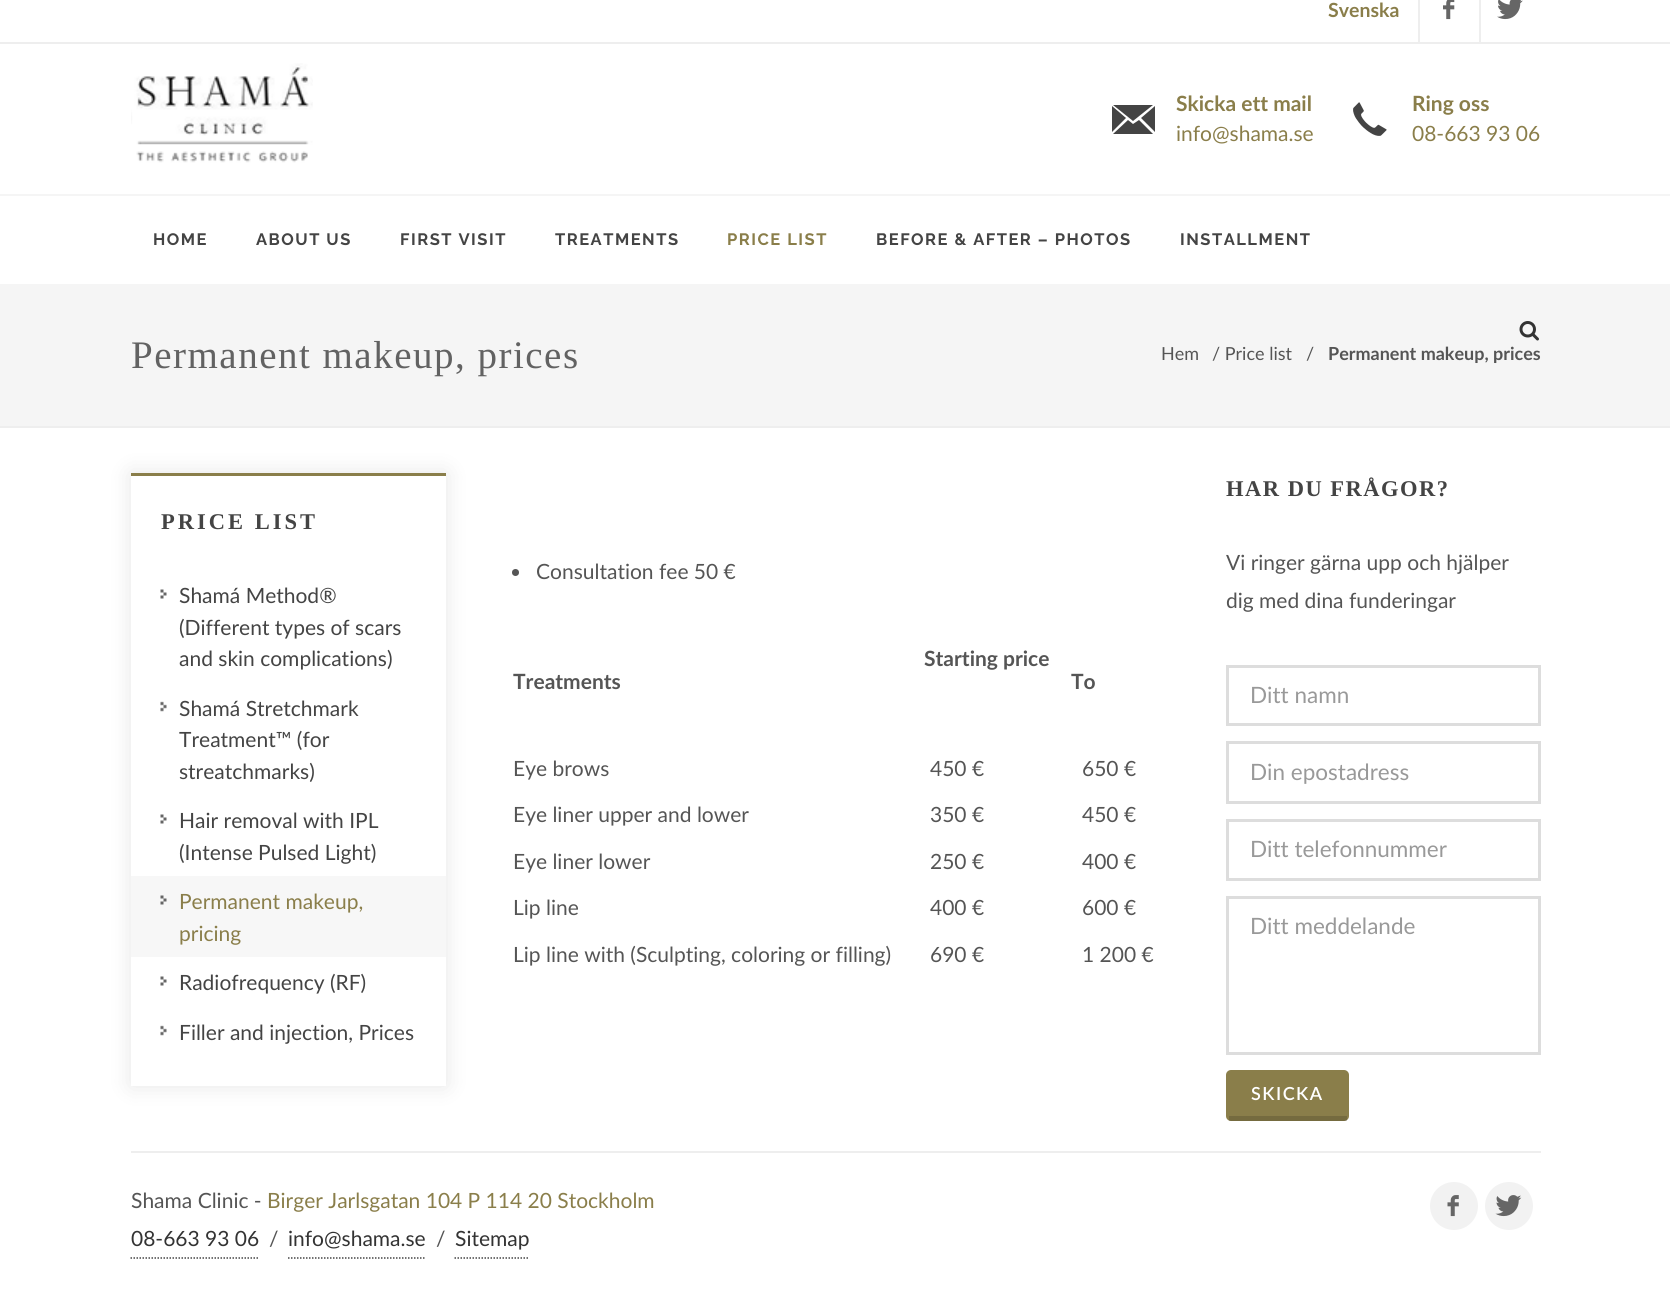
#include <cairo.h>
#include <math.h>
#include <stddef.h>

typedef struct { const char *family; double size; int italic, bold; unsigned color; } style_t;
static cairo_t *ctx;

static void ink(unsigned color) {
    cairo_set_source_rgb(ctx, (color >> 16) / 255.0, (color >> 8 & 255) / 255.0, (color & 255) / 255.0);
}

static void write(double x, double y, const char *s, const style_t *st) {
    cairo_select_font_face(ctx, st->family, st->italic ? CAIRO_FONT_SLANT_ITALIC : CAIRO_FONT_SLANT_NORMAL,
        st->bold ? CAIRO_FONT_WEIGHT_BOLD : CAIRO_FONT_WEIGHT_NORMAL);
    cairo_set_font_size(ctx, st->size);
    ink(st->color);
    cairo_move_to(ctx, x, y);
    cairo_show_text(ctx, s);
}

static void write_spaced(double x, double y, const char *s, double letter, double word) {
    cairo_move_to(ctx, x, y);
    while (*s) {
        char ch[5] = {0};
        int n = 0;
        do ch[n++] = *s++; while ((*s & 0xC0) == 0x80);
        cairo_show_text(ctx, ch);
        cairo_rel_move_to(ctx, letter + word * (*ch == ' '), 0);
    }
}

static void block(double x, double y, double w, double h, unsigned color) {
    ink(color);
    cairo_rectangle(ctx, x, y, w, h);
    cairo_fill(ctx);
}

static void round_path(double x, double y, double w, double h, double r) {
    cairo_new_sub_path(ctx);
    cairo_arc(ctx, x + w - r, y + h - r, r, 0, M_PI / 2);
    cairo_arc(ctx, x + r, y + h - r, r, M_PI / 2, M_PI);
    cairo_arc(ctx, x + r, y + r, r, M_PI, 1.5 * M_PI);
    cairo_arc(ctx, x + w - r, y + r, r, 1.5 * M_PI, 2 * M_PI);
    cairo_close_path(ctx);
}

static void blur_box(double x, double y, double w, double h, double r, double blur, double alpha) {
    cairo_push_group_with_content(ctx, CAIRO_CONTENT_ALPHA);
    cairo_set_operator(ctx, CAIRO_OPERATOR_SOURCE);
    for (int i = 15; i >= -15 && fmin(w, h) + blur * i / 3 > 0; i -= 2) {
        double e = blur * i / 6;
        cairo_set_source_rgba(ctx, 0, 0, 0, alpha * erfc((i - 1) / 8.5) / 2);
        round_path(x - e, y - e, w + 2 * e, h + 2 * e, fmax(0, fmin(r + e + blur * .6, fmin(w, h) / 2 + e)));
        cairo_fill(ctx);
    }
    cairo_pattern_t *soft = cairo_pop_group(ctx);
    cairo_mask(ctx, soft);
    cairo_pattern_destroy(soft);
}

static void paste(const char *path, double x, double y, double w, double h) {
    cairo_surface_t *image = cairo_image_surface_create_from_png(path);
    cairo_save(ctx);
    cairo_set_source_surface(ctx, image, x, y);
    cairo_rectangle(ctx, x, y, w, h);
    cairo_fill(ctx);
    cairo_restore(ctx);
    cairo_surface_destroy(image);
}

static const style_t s1 = {"Lato", 19.5, 0, 1, 0x8a7e4a};
static const style_t s2 = {"Lato", 21, 0, 1, 0x8a7e4a};
static const style_t s3 = {"Lato", 21, 0, 0, 0x8a7e4a};
static const style_t s4 = {"Lato", 18, 0, 0, 0x555555};
static const style_t s5 = {"Lato", 18, 0, 1, 0x555555};
static const style_t s6 = {"Lato", 21, 0, 0, 0x444444};
static const style_t s7 = {"Lato", 21, 0, 0, 0x555555};
static const style_t s8 = {"Lato", 21, 0, 1, 0x555555};
static const style_t s9 = {"Lato", 22.5, 0, 0, 0x999999};
static const style_t s10 = {"Lato", 21, 0, 0, 0x333333};

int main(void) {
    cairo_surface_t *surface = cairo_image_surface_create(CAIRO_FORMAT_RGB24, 1670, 1314);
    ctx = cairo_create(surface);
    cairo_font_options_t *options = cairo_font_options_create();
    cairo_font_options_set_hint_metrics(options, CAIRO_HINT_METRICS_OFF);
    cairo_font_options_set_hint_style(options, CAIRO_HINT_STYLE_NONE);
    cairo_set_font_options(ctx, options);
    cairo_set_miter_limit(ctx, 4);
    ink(0xffffff);
    cairo_paint(ctx);
    block(0, 42, 1670, 2, 0xeeeeee);
    write(1328, 17, "Svenska", &s1);
    block(1418, 0, 2, 42, 0xeeeeee);
    paste("pic1.png", 1443, 0, 12, 20);
    block(1479, 0, 2, 42, 0xeeeeee);
    paste("pic2.png", 1497, 0, 26, 20);
    block(0, 284, 1670, 142, 0xf5f5f5);
    paste("pic3.png", 131, 63, 182, 100);
    ink(0x444444);
    cairo_new_path(ctx);
    cairo_move_to(ctx, 1112, 131);
    cairo_line_to(ctx, 1112, 106);
    cairo_line_to(ctx, 1126, 118);
    cairo_line_to(ctx, 1112, 132);
    cairo_close_path(ctx);
    cairo_move_to(ctx, 1113, 105);
    cairo_line_to(ctx, 1153, 105);
    cairo_line_to(ctx, 1133, 121);
    cairo_close_path(ctx);
    cairo_move_to(ctx, 1113, 134);
    cairo_line_to(ctx, 1128, 120);
    cairo_line_to(ctx, 1133, 124);
    cairo_line_to(ctx, 1139, 120);
    cairo_line_to(ctx, 1153, 134);
    cairo_close_path(ctx);
    cairo_move_to(ctx, 1141, 118);
    cairo_line_to(ctx, 1155, 106);
    cairo_line_to(ctx, 1155, 132);
    cairo_close_path(ctx);
    cairo_fill(ctx);
    write(1176, 111, "Skicka ett mail", &s2);
    write(1176, 141, "info@shama.se", &s3);
    paste("pic4.png", 1353, 102, 34, 34);
    write(1412, 111, "Ring oss", &s2);
    write(1412, 141, "08-663 93 06", &s3);
    block(0, 194, 1670, 2, 0xf5f5f5);
    cairo_select_font_face(ctx, "Raleway", CAIRO_FONT_SLANT_NORMAL, CAIRO_FONT_WEIGHT_BOLD);
    cairo_set_font_size(ctx, 16.5);
    ink(0x444444);
    write_spaced(153, 245, "HOME", 1.5, 0);
    write_spaced(256, 245, "ABOUT US", 1.5, 0);
    write_spaced(400, 245, "FIRST VISIT", 1.5, 0);
    write_spaced(555, 245, "TREATMENTS", 1.5, 0);
    ink(0x8a7e4a);
    write_spaced(727, 245, "PRICE LIST", 1.5, 0);
    ink(0x444444);
    write_spaced(876, 245, "BEFORE & AFTER – PHOTOS", 1.5, 0);
    write_spaced(1180, 245, "INSTALLMENT", 1.5, 0);
    paste("pic5.png", 1519, 321, 20, 20);
    block(0, 426, 1670, 2, 0xeeeeee);
    cairo_select_font_face(ctx, "Liberation Serif", CAIRO_FONT_SLANT_NORMAL, CAIRO_FONT_WEIGHT_NORMAL);
    cairo_set_font_size(ctx, 39);
    ink(0x626262);
    write_spaced(131, 368, "Permanent makeup, prices", 1.5, 0);
    write(1161, 360, "Hem", &s4);
    write(1212, 360, "/ Price list", &s4);
    write(1306, 360, "/", &s4);
    write(1328, 360, "Permanent makeup, prices", &s5);
    cairo_save(ctx);
    cairo_set_fill_rule(ctx, CAIRO_FILL_RULE_EVEN_ODD);
    cairo_new_path(ctx);
    cairo_move_to(ctx, 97, 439);
    cairo_line_to(ctx, 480, 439);
    cairo_line_to(ctx, 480, 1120);
    cairo_line_to(ctx, 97, 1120);
    cairo_close_path(ctx);
    cairo_move_to(ctx, 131, 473);
    cairo_line_to(ctx, 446, 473);
    cairo_line_to(ctx, 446, 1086);
    cairo_line_to(ctx, 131, 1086);
    cairo_close_path(ctx);
    cairo_clip(ctx);
    ink(0x000000);
    blur_box(131, 473, 315, 613, 0, 11, 0.1);
    cairo_restore(ctx);
    block(131, 473, 315, 3, 0x8a7e4a);
    cairo_select_font_face(ctx, "Liberation Serif", CAIRO_FONT_SLANT_NORMAL, CAIRO_FONT_WEIGHT_BOLD);
    cairo_set_font_size(ctx, 22.5);
    ink(0x444444);
    write_spaced(161, 529, "PRICE LIST", 3, 0);
    paste("pic6.png", 160, 589, 7, 10);
    write(179, 603, "Shamá Method®", &s6);
    write(179, 635, "(Different types of scars", &s6);
    write(179, 666, "and skin complications)", &s6);
    paste("pic7.png", 160, 701, 7, 11);
    write(179, 716, "Shamá Stretchmark", &s6);
    write(179, 747, "Treatment™ (for", &s6);
    write(179, 779, "streatchmarks)", &s6);
    paste("pic6.png", 160, 814, 7, 10);
    write(179, 828, "Hair removal with IPL", &s6);
    write(179, 860, "(Intense Pulsed Light)", &s6);
    cairo_set_source_rgba(ctx, 0.949, 0.949, 0.949, 0.58);
    cairo_rectangle(ctx, 131, 876, 315, 81);
    cairo_fill(ctx);
    paste("pic8.png", 160, 895, 7, 10);
    write(179, 909, "Permanent makeup,", &s3);
    write(179, 941, "pricing", &s3);
    paste("pic6.png", 160, 976, 7, 10);
    write(179, 990, "Radiofrequency (RF)", &s6);
    paste("pic7.png", 160, 1025, 7, 11);
    write(179, 1040, "Filler and injection, Prices", &s6);
    ink(0x555555);
    cairo_new_path(ctx);
    cairo_arc(ctx, 515.5, 572.5, 3.5, 0, 2 * M_PI);
    cairo_fill(ctx);
    write(536, 579, "Consultation fee 50 €", &s7);
    write(924, 666, "Starting price", &s8);
    write(513, 689, "Treatments", &s8);
    write(1071, 689, "To", &s8);
    write(513, 776, "Eye brows", &s7);
    write(930, 776, "450 €", &s7);
    write(1082, 776, "650 €", &s7);
    write(513, 822, "Eye liner upper and lower", &s7);
    write(930, 822, "350 €", &s7);
    write(1082, 822, "450 €", &s7);
    write(513, 869, "Eye liner lower", &s7);
    write(930, 869, "250 €", &s7);
    write(1082, 869, "400 €", &s7);
    write(513, 915, "Lip line", &s7);
    write(930, 915, "400 €", &s7);
    write(1082, 915, "600 €", &s7);
    write(513, 962, "Lip line with (Sculpting, coloring or filling)", &s7);
    write(930, 962, "690 €", &s7);
    write(1082, 962, "1 200 €", &s7);
    cairo_select_font_face(ctx, "Liberation Serif", CAIRO_FONT_SLANT_NORMAL, CAIRO_FONT_WEIGHT_BOLD);
    cairo_set_font_size(ctx, 22.5);
    ink(0x444444);
    write_spaced(1226, 496, "HAR DU FRÅGOR?", 1.5, 0);
    write(1226, 570, "Vi ringer gärna upp och hjälper", &s7);
    write(1226, 608, "dig med dina funderingar", &s7);
    cairo_rectangle(ctx, 1227.5, 666.5, 312, 58);
    ink(0xdddddd);
    cairo_set_line_width(ctx, 3);
    cairo_stroke(ctx);
    write(1250, 703, "Ditt namn", &s9);
    cairo_rectangle(ctx, 1227.5, 742.5, 312, 60);
    ink(0xdddddd);
    cairo_stroke(ctx);
    write(1250, 780, "Din epostadress", &s9);
    cairo_rectangle(ctx, 1227.5, 820.5, 312, 59);
    ink(0xdddddd);
    cairo_stroke(ctx);
    write(1250, 857, "Ditt telefonnummer", &s9);
    cairo_rectangle(ctx, 1227.5, 897.5, 312, 156);
    ink(0xdddddd);
    cairo_stroke(ctx);
    write(1250, 934, "Ditt meddelande", &s9);
    ink(0x8a7e4a);
    round_path(1226, 1070, 123, 51, 5);
    cairo_fill(ctx);
    cairo_set_source_rgba(ctx, 0, 0, 0, 0.15);
    cairo_rectangle(ctx, 1229, 1116, 118, 5);
    cairo_fill(ctx);
    cairo_select_font_face(ctx, "Lato SemiBold", CAIRO_FONT_SLANT_NORMAL, CAIRO_FONT_WEIGHT_NORMAL);
    cairo_set_font_size(ctx, 18);
    ink(0xffffff);
    write_spaced(1251, 1100, "SKICKA", 1.5, 0);
    block(131, 1151, 1410, 2, 0xeeeeee);
    write(131, 1208, "Shama Clinic -", &s7);
    write(267, 1208, "Birger Jarlsgatan 104 P 114 20 Stockholm", &s3);
    cairo_new_path(ctx);
    cairo_move_to(ctx, 130.5, 1258);
    cairo_line_to(ctx, 258, 1258);
    ink(0x444444);
    cairo_set_line_width(ctx, 1.5);
    cairo_set_dash(ctx, (double[]){1.5, 1.5}, 2, 0);
    cairo_stroke(ctx);
    write(131, 1246, "08-663 93 06", &s10);
    write(269, 1246, "/", &s7);
    cairo_new_path(ctx);
    cairo_move_to(ctx, 288, 1258);
    cairo_line_to(ctx, 426, 1258);
    ink(0x444444);
    cairo_stroke(ctx);
    write(288, 1246, "info@shama.se", &s10);
    write(436, 1246, "/", &s7);
    cairo_new_path(ctx);
    cairo_move_to(ctx, 454.5, 1258);
    cairo_line_to(ctx, 529.5, 1258);
    ink(0x444444);
    cairo_stroke(ctx);
    write(455, 1246, "Sitemap", &s10);
    ink(0xf2f2f2);
    cairo_new_path(ctx);
    cairo_arc(ctx, 1454, 1206, 24, 0, 2 * M_PI);
    cairo_fill(ctx);
    paste("pic9.png", 1447, 1195, 12, 22);
    cairo_arc(ctx, 1509, 1206, 24, 0, 2 * M_PI);
    cairo_fill(ctx);
    paste("pic10.png", 1495, 1195, 27, 22);
    cairo_surface_write_to_png(surface, "screenshot.png");
    cairo_font_options_destroy(options);
    cairo_destroy(ctx);
    cairo_surface_destroy(surface);
    return 0;
}
